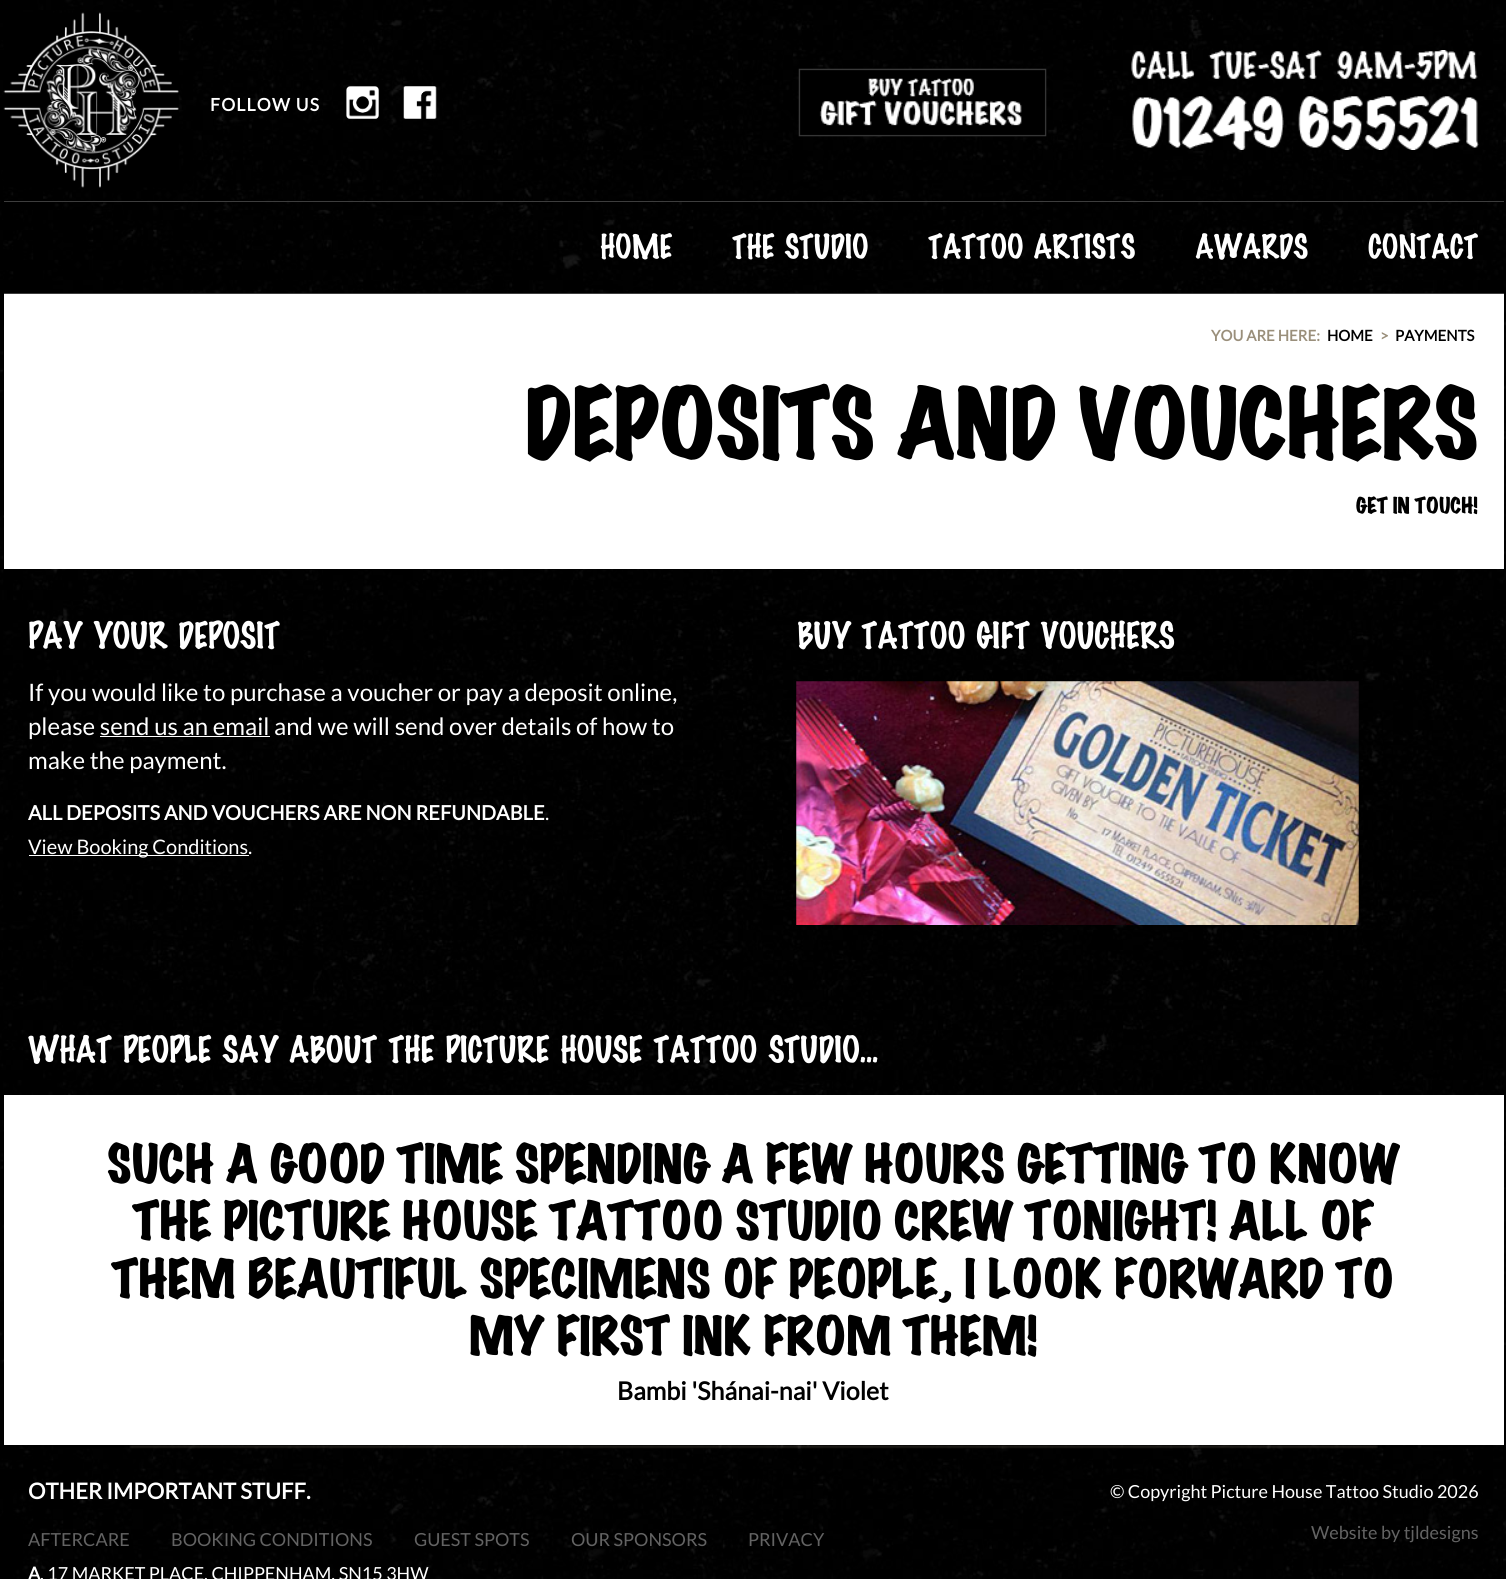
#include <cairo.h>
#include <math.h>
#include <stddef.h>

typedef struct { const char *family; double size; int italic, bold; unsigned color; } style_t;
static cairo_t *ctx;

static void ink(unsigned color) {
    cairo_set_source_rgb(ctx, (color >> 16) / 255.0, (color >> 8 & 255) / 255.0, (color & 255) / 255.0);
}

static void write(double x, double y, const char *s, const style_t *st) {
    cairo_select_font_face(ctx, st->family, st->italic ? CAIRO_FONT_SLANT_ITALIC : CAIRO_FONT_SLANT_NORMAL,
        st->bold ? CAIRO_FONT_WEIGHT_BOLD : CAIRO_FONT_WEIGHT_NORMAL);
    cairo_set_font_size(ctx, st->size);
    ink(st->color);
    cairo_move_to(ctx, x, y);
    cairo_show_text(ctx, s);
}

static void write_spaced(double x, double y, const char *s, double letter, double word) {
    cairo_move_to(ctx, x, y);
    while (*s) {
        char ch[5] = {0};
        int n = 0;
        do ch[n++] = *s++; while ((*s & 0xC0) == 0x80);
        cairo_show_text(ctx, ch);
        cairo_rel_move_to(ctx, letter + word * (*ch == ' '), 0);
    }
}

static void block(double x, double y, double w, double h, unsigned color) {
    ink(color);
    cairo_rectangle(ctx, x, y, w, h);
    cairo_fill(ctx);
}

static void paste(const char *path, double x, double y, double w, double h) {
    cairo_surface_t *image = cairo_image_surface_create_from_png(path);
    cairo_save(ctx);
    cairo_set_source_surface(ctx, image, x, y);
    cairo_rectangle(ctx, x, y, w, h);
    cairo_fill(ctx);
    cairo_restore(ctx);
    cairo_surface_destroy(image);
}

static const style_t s1 = {"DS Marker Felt", 33, 0, 0, 0xffffff};
static const style_t s2 = {"Lato", 15, 0, 1, 0x9a8f7b};
static const style_t s3 = {"Lato", 15, 0, 1, 0x000000};
static const style_t s4 = {"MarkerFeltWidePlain", 88, 0, 0, 0x000000};
static const style_t s5 = {"MarkerFeltWidePlain", 20, 0, 0, 0x000000};
static const style_t s6 = {"DS Marker Felt", 36, 0, 0, 0xffffff};
static const style_t s7 = {"Lato", 24, 0, 0, 0xffffff};
static const style_t s8 = {"Lato", 20, 0, 1, 0xffffff};
static const style_t s9 = {"Lato", 20, 0, 0, 0xffffff};
static const style_t s10 = {"MarkerFeltWidePlain", 48, 0, 0, 0x000000};
static const style_t s11 = {"Lato", 25, 0, 1, 0x000000};
static const style_t s12 = {"Lato", 22, 0, 1, 0xffffff};
static const style_t s13 = {"Lato", 18, 0, 0, 0xffffff};
static const style_t s14 = {"Lato", 18, 0, 0, 0x636363};
static const style_t s15 = {"Lato", 18, 0, 1, 0xffffff};

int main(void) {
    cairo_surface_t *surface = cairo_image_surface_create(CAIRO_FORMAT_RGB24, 1506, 1579);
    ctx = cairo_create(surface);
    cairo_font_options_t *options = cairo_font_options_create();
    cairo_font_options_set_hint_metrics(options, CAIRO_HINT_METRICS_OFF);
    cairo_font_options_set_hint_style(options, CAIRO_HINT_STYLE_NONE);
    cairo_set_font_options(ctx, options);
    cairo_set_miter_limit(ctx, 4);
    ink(0xffffff);
    cairo_paint(ctx);
    paste("pic1.png", 0, 0, 1506, 1579);
    paste("pic2.png", 3, 12, 176, 176);
    cairo_select_font_face(ctx, "Lato", CAIRO_FONT_SLANT_NORMAL, CAIRO_FONT_WEIGHT_BOLD);
    cairo_set_font_size(ctx, 17.5);
    ink(0xffffff);
    write_spaced(210, 111, "FOLLOW US", 1.25, 0);
    paste("pic3.png", 346, 86, 33, 33);
    paste("pic4.png", 403, 86, 34, 33);
    paste("pic5.png", 798, 68, 249, 69);
    paste("pic6.png", 1131, 50, 348, 100);
    block(4, 201, 1500, 1, 0x3d3d3d);
    write(600, 258, "HOME", &s1);
    write(732, 258, "THE STUDIO", &s1);
    write(928, 258, "TATTOO ARTISTS", &s1);
    write(1195, 258, "AWARDS", &s1);
    write(1368, 258, "CONTACT", &s1);
    block(4, 293, 1500, 1, 0x3d3d3d);
    block(4, 294, 1500, 275, 0xffffff);
    write(1211, 341, "YOU ARE HERE:", &s2);
    write(1327, 341, "HOME", &s3);
    write(1380, 341, ">", &s2);
    write(1395, 341, "PAYMENTS", &s3);
    write(525, 457, "DEPOSITS AND VOUCHERS", &s4);
    write(1356, 513, "GET IN TOUCH!", &s5);
    write(28, 648, "PAY YOUR DEPOSIT", &s6);
    write(28, 701, "If you would like to purchase a voucher or pay a deposit online,", &s7);
    write(28, 735, "please send us an email and we will send over details of how to", &s7);
    block(100, 736, 170, 1, 0xffffff);
    write(28, 769, "make the payment.", &s7);
    write(28, 820, "ALL DEPOSITS AND VOUCHERS ARE NON REFUNDABLE", &s8);
    write(545, 820, ".", &s9);
    block(29, 855, 220, 1, 0xffffff);
    write(28, 854, "View Booking Conditions.", &s9);
    write(797, 648, "BUY TATTOO GIFT VOUCHERS", &s6);
    paste("pic7.png", 796, 681, 563, 244);
    write(28, 1062, "WHAT PEOPLE SAY ABOUT THE PICTURE HOUSE TATTOO STUDIO...", &s6);
    block(4, 1095, 1500, 350, 0xffffff);
    write(107, 1182, "SUCH A GOOD TIME SPENDING A FEW HOURS GETTING TO KNOW", &s10);
    write(133, 1239, "THE PICTURE HOUSE TATTOO STUDIO CREW TONIGHT! ALL OF", &s10);
    write(112, 1297, "THEM BEAUTIFUL SPECIMENS OF PEOPLE, I LOOK FORWARD TO", &s10);
    write(469, 1354, "MY FIRST INK FROM THEM!", &s10);
    write(617, 1400, "Bambi 'Shánai-nai' Violet", &s11);
    paste("pic8.png", 129, 1445, 1249, 4);
    write(28, 1499, "OTHER IMPORTANT STUFF.", &s12);
    write(1110, 1498, "© Copyright Picture House Tattoo Studio 2026", &s13);
    write(1311, 1539, "Website by tjldesigns", &s14);
    write(28, 1546, "AFTERCARE", &s14);
    write(171, 1546, "BOOKING CONDITIONS", &s14);
    write(414, 1546, "GUEST SPOTS", &s14);
    write(571, 1546, "OUR SPONSORS", &s14);
    write(748, 1546, "PRIVACY", &s14);
    write(28, 1580, "A", &s15);
    write(40, 1580, ". 17 MARKET PLACE, CHIPPENHAM, SN15 3HW", &s13);
    cairo_surface_write_to_png(surface, "screenshot.png");
    cairo_font_options_destroy(options);
    cairo_destroy(ctx);
    cairo_surface_destroy(surface);
    return 0;
}
